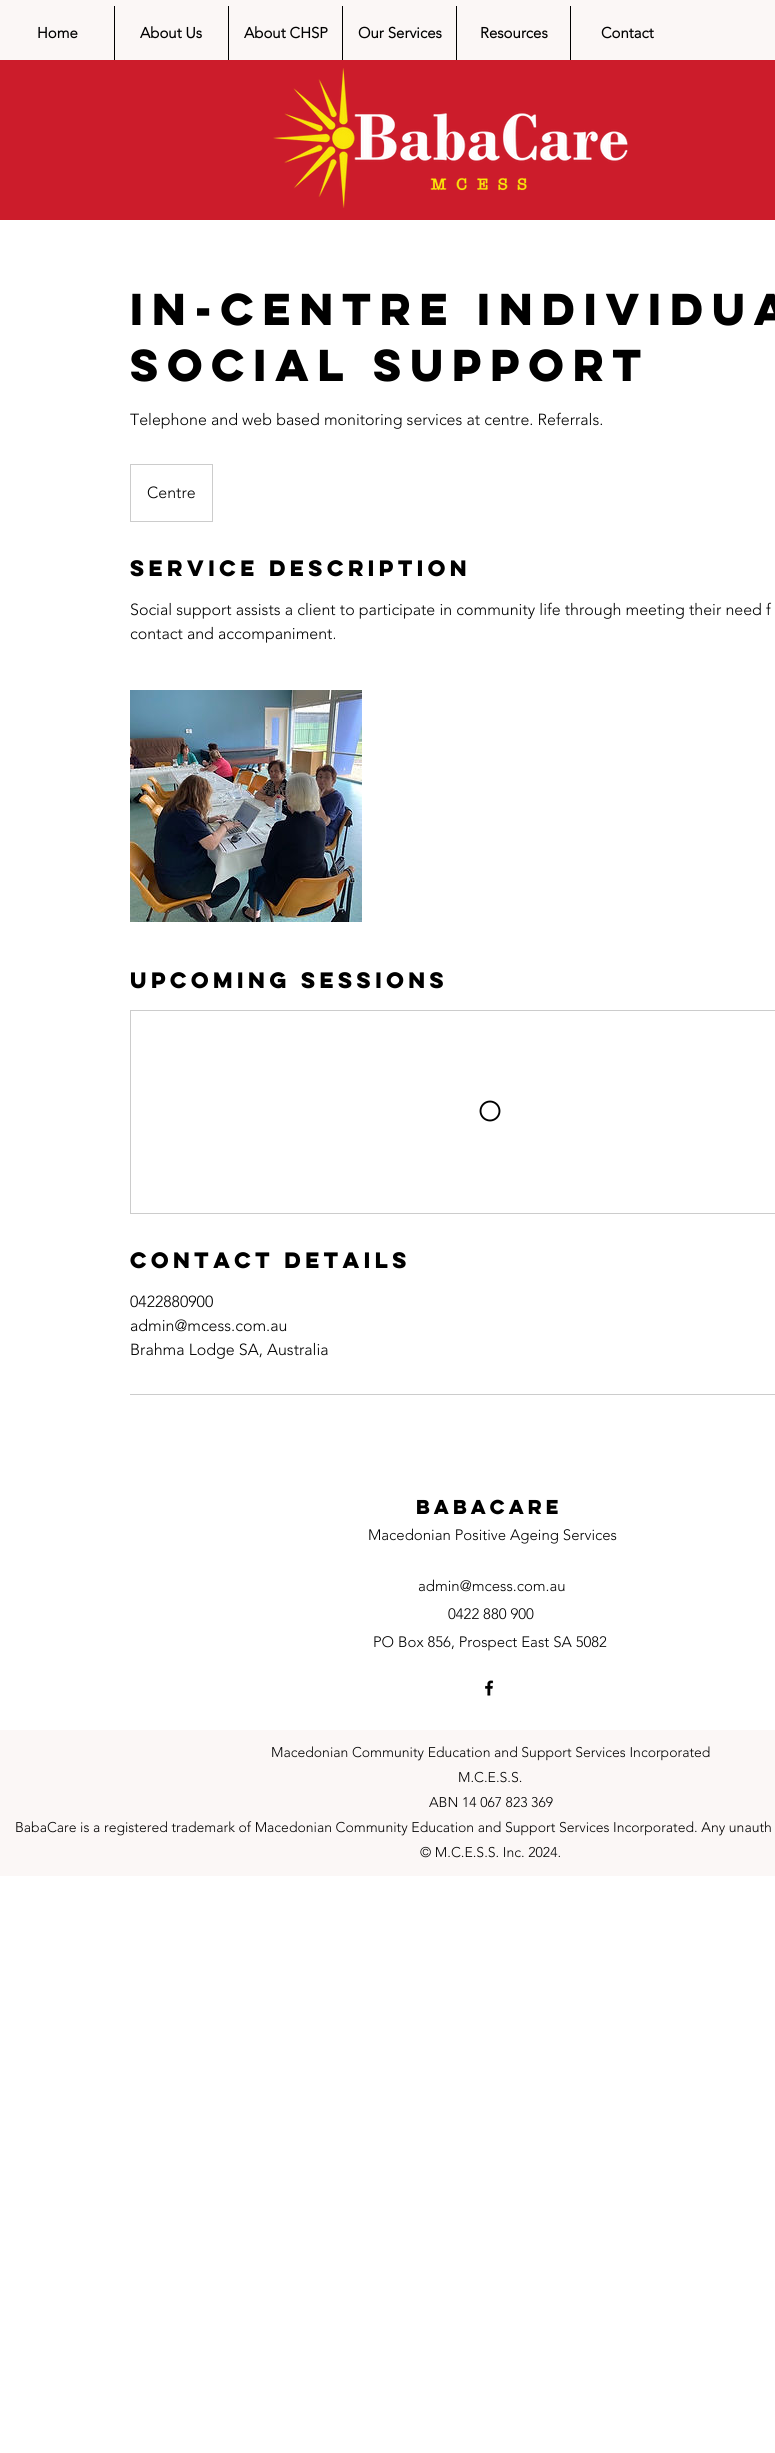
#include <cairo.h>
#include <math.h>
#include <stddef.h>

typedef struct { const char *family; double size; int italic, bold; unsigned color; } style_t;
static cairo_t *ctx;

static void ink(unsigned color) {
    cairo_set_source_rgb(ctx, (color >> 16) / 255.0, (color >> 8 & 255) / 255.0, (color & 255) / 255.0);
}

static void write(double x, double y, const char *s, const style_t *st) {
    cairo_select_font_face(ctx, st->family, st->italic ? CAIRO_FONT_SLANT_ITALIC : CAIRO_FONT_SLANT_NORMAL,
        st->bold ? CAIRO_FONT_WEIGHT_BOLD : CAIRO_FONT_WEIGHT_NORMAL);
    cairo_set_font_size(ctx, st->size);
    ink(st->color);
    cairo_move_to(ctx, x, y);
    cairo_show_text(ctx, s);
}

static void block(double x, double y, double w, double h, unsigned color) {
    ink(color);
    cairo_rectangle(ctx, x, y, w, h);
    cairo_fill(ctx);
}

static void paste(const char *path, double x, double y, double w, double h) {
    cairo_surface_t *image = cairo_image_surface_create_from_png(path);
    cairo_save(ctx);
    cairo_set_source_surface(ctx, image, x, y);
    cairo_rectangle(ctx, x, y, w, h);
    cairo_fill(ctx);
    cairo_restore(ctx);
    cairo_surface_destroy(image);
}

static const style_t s1 = {"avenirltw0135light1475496", 15, 0, 1, 0x000000};
static const style_t s2 = {"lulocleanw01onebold", 40, 0, 1, 0x000000};
static const style_t s3 = {"avenirltw0135light1475496 Light", 16, 0, 0, 0x000000};
static const style_t s4 = {"lulocleanw01onebold", 20, 0, 1, 0x000000};
static const style_t s5 = {"lulocleanw01onebold", 18, 0, 1, 0x000000};
static const style_t s6 = {"avenirltw0135light1475496 Light", 15, 0, 0, 0x000000};
static const style_t s7 = {"avenirltw0135light1475496 Light", 14, 0, 0, 0x000000};

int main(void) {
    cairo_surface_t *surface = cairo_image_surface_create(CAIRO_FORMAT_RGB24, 775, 2453);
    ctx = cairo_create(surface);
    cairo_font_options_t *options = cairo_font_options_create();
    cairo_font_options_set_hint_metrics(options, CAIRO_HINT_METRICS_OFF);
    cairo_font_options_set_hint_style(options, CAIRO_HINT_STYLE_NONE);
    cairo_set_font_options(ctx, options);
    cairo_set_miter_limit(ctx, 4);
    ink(0xffffff);
    cairo_paint(ctx);
    block(0, 0, 775, 60, 0xfbf7f6);
    write(37, 38, "Home", &s1);
    block(114, 6, 1, 54, 0x000000);
    write(140, 38, "About Us", &s1);
    block(228, 6, 1, 54, 0x000000);
    write(244, 38, "About CHSP", &s1);
    block(342, 6, 1, 54, 0x000000);
    write(358, 38, "Our Services", &s1);
    block(456, 6, 1, 54, 0x000000);
    write(480, 38, "Resources", &s1);
    block(570, 6, 1, 54, 0x000000);
    write(601, 38, "Contact", &s1);
    block(0, 60, 775, 160, 0xcc1c2b);
    paste("pic1.png", 273, 68, 355, 140);
    write(130, 325, "In-Centre Individua", &s2);
    write(130, 381, "Social Support", &s2);
    write(130, 425, "Telephone and web based monitoring services at centre. Referrals.", &s3);
    cairo_rectangle(ctx, 130.5, 464.5, 82, 57);
    ink(0xcccccc);
    cairo_set_line_width(ctx, 1);
    cairo_stroke(ctx);
    write(147, 498, "Centre", &s3);
    write(130, 576, "Service Description", &s4);
    write(130, 615, "Social support assists a client to participate in community life through meeting their need f", &s3);
    write(130, 639, "contact and accompaniment.", &s3);
    paste("pic2.png", 130, 690, 232, 232);
    write(130, 988, "Upcoming Sessions", &s4);
    cairo_rectangle(ctx, 130.5, 1010.5, 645, 203);
    ink(0xcccccc);
    cairo_stroke(ctx);
    cairo_arc(ctx, 490, 1111, 9.5, 0, 2 * M_PI);
    ink(0x000000);
    cairo_set_line_width(ctx, 1.9);
    cairo_stroke(ctx);
    write(130, 1268, "Contact Details", &s4);
    write(130, 1307, "0422880900", &s3);
    write(130, 1331, "admin@mcess.com.au", &s3);
    write(130, 1355, "Brahma Lodge SA, Australia", &s3);
    block(130, 1394, 645, 1, 0xcccccc);
    write(416, 1514, "BabaCare", &s5);
    write(368, 1540, "Macedonian Positive Ageing Services", &s6);
    write(418, 1591, "admin@mcess.com.au", &s6);
    write(448, 1619, "0422 880 900", &s6);
    write(373, 1647, "PO Box 856, Prospect East SA 5082", &s6);
    paste("pic3.png", 485, 1680, 9, 16);
    block(0, 1730, 775, 146, 0xfbf7f6);
    write(271, 1757, "Macedonian Community Education and Support Services Incorporated", &s7);
    write(458, 1782, "M.C.E.S.S.", &s7);
    write(429, 1807, "ABN 14 067 823 369", &s7);
    write(15, 1832, "BabaCare is a registered trademark of Macedonian Community Education and Support Services Incorporated. Any unauth", &s7);
    write(420, 1857, "© M.C.E.S.S. Inc. 2024.", &s7);
    cairo_surface_write_to_png(surface, "screenshot.png");
    cairo_font_options_destroy(options);
    cairo_destroy(ctx);
    cairo_surface_destroy(surface);
    return 0;
}
